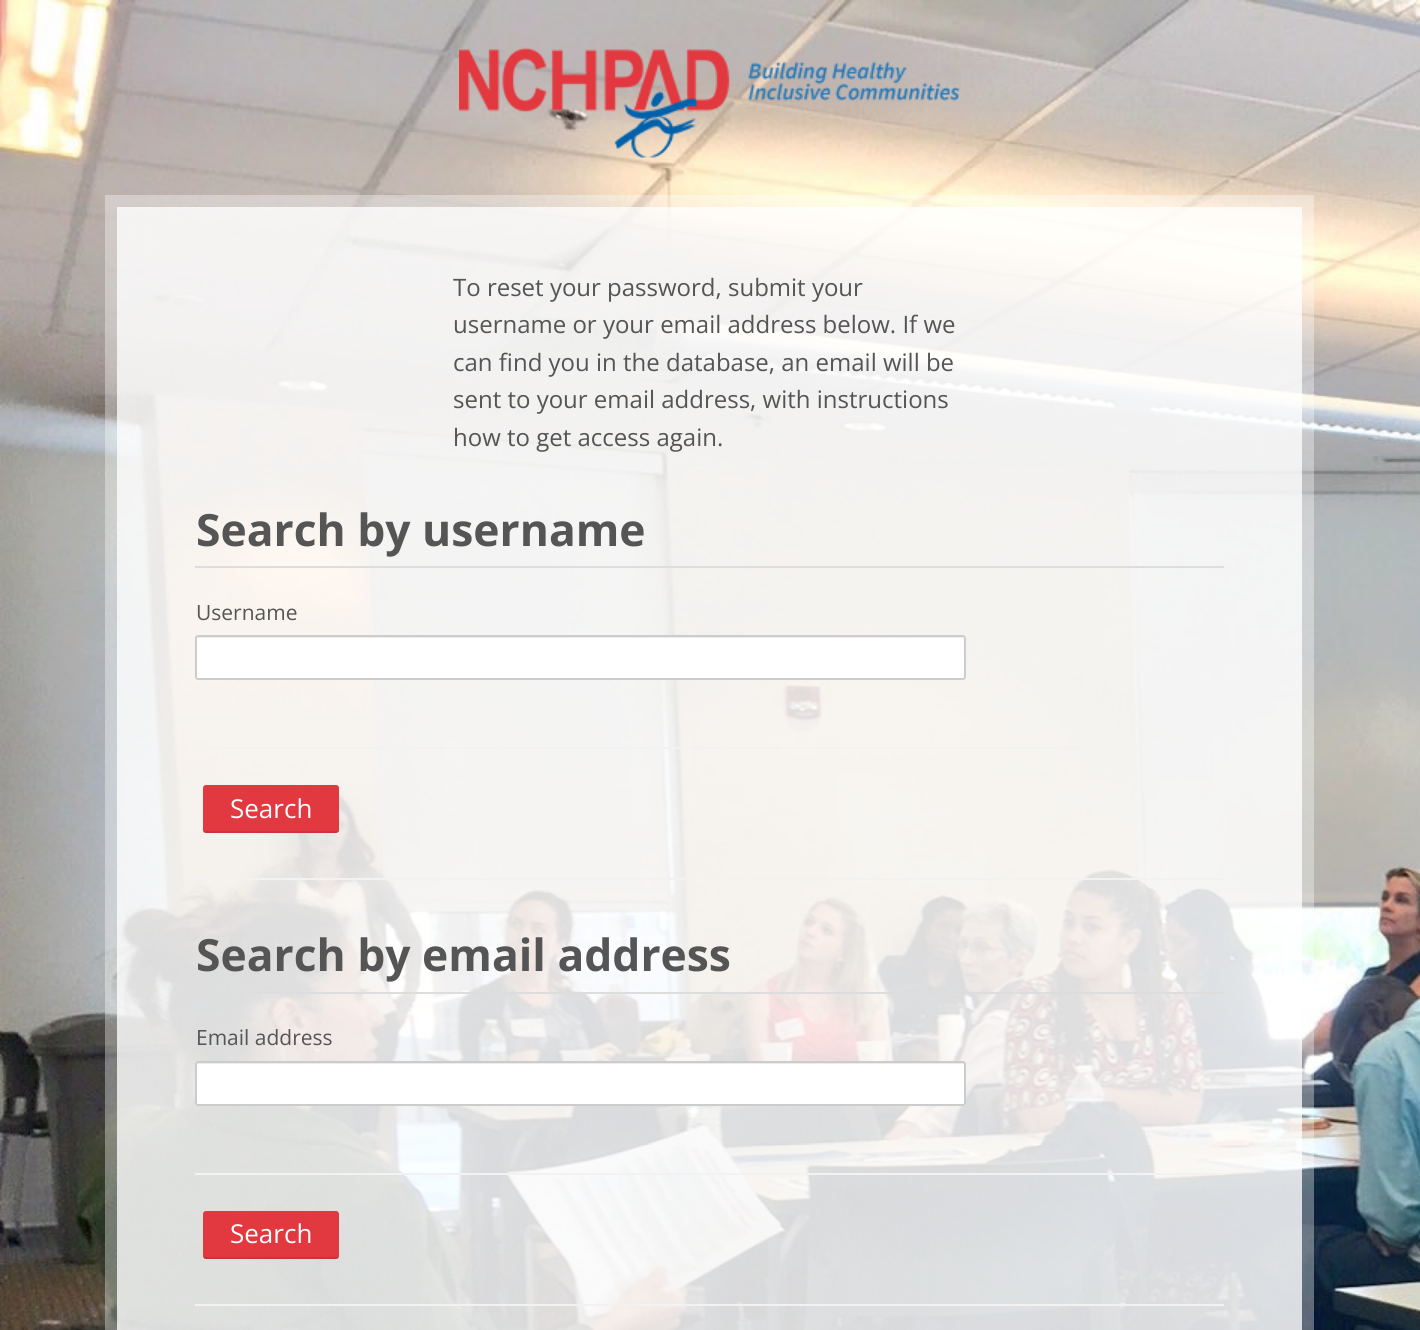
#include <cairo.h>
#include <math.h>
#include <stddef.h>

typedef struct { const char *family; double size; int italic, bold; unsigned color; } style_t;
static cairo_t *ctx;

static void ink(unsigned color) {
    cairo_set_source_rgb(ctx, (color >> 16) / 255.0, (color >> 8 & 255) / 255.0, (color & 255) / 255.0);
}

static void write(double x, double y, const char *s, const style_t *st) {
    cairo_select_font_face(ctx, st->family, st->italic ? CAIRO_FONT_SLANT_ITALIC : CAIRO_FONT_SLANT_NORMAL,
        st->bold ? CAIRO_FONT_WEIGHT_BOLD : CAIRO_FONT_WEIGHT_NORMAL);
    cairo_set_font_size(ctx, st->size);
    ink(st->color);
    cairo_move_to(ctx, x, y);
    cairo_show_text(ctx, s);
}

static void block(double x, double y, double w, double h, unsigned color) {
    ink(color);
    cairo_rectangle(ctx, x, y, w, h);
    cairo_fill(ctx);
}

static void round_path(double x, double y, double w, double h, double r) {
    cairo_new_sub_path(ctx);
    cairo_arc(ctx, x + w - r, y + h - r, r, 0, M_PI / 2);
    cairo_arc(ctx, x + r, y + h - r, r, M_PI / 2, M_PI);
    cairo_arc(ctx, x + r, y + r, r, M_PI, 1.5 * M_PI);
    cairo_arc(ctx, x + w - r, y + r, r, 1.5 * M_PI, 2 * M_PI);
    cairo_close_path(ctx);
}

static void paste(const char *path, double x, double y, double w, double h) {
    cairo_surface_t *image = cairo_image_surface_create_from_png(path);
    cairo_save(ctx);
    cairo_set_source_surface(ctx, image, x, y);
    cairo_rectangle(ctx, x, y, w, h);
    cairo_fill(ctx);
    cairo_restore(ctx);
    cairo_surface_destroy(image);
}

static const style_t s1 = {"Open Sans", 24, 0, 0, 0x555555};
static const style_t s2 = {"Open Sans", 44.4, 0, 1, 0x555555};
static const style_t s3 = {"Open Sans", 21, 0, 0, 0x555555};
static const style_t s4 = {"Open Sans", 26, 0, 0, 0xffffff};

int main(void) {
    cairo_surface_t *surface = cairo_image_surface_create(CAIRO_FORMAT_RGB24, 1420, 1330);
    ctx = cairo_create(surface);
    cairo_font_options_t *options = cairo_font_options_create();
    cairo_font_options_set_hint_metrics(options, CAIRO_HINT_METRICS_OFF);
    cairo_font_options_set_hint_style(options, CAIRO_HINT_STYLE_NONE);
    cairo_set_font_options(ctx, options);
    cairo_set_miter_limit(ctx, 4);
    ink(0xffffff);
    cairo_paint(ctx);
    paste("pic1.png", 0, 0, 1420, 1330);
    paste("pic2.png", 459, 47, 501, 111);
    cairo_set_source_rgba(ctx, 1, 1, 1, 0.85);
    cairo_rectangle(ctx, 117, 207, 1185, 1123);
    cairo_fill(ctx);
    cairo_new_path(ctx);
    cairo_move_to(ctx, 111, 201);
    cairo_line_to(ctx, 1308, 201);
    cairo_line_to(ctx, 1308, 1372.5);
    cairo_line_to(ctx, 111, 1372.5);
    cairo_close_path(ctx);
    cairo_set_source_rgba(ctx, 1, 1, 1, 0.35);
    cairo_set_line_width(ctx, 12);
    cairo_stroke(ctx);
    write(453, 296, "To reset your password, submit your", &s1);
    write(453, 333, "username or your email address below. If we", &s1);
    write(453, 371, "can find you in the database, an email will be", &s1);
    write(453, 408, "sent to your email address, with instructions", &s1);
    write(453, 446, "how to get access again.", &s1);
    block(195, 566, 1029, 2, 0xdddddd);
    write(196, 546, "Search by username", &s2);
    block(195, 747, 943, 2, 0xf2f2f2);
    write(196, 620, "Username", &s3);
    ink(0xffffff);
    round_path(195, 635, 771, 45, 3);
    cairo_fill(ctx);
    ink(0xececec);
    cairo_new_path(ctx);
    cairo_move_to(ctx, 198, 638);
    cairo_line_to(ctx, 963, 638);
    cairo_curve_to(ctx, 964, 638, 964, 638, 964, 639);
    cairo_line_to(ctx, 964, 678);
    cairo_line_to(ctx, 965, 677);
    cairo_line_to(ctx, 965, 638);
    cairo_curve_to(ctx, 965, 637, 964, 636, 964, 636);
    cairo_line_to(ctx, 198, 636);
    cairo_line_to(ctx, 197, 637);
    cairo_line_to(ctx, 197, 638);
    cairo_close_path(ctx);
    cairo_fill(ctx);
    round_path(196, 636, 769, 43, 2);
    ink(0xcccccc);
    cairo_set_line_width(ctx, 2);
    cairo_stroke(ctx);
    block(195, 878, 1029, 2, 0xf2f2f2);
    ink(0xe2383f);
    round_path(203, 785, 136, 48, 3);
    cairo_fill(ctx);
    cairo_set_source_rgba(ctx, 0, 0, 0, 0.1);
    cairo_new_path(ctx);
    cairo_move_to(ctx, 203, 830);
    cairo_curve_to(ctx, 203, 832, 204, 833, 206, 833);
    cairo_line_to(ctx, 336, 833);
    cairo_curve_to(ctx, 338, 833, 339, 832, 339, 830);
    cairo_line_to(ctx, 339, 828);
    cairo_curve_to(ctx, 339, 830, 338, 831, 336, 831);
    cairo_line_to(ctx, 206, 831);
    cairo_curve_to(ctx, 205, 831, 204, 831, 203, 830);
    cairo_close_path(ctx);
    cairo_fill(ctx);
    write(230, 818, "Search", &s4);
    block(253, 992, 971, 2, 0xdddddd);
    write(196, 971, "Search by email address", &s2);
    block(195, 1173, 1029, 2, 0xf2f2f2);
    write(196, 1045, "Email address", &s3);
    ink(0xffffff);
    round_path(195, 1061, 771, 45, 3);
    cairo_fill(ctx);
    ink(0xececec);
    cairo_new_path(ctx);
    cairo_move_to(ctx, 198, 1064);
    cairo_line_to(ctx, 963, 1064);
    cairo_curve_to(ctx, 964, 1064, 964, 1064, 964, 1065);
    cairo_line_to(ctx, 964, 1104);
    cairo_line_to(ctx, 965, 1103);
    cairo_line_to(ctx, 965, 1064);
    cairo_curve_to(ctx, 965, 1063, 964, 1062, 964, 1062);
    cairo_line_to(ctx, 198, 1062);
    cairo_line_to(ctx, 197, 1063);
    cairo_line_to(ctx, 197, 1064);
    cairo_close_path(ctx);
    cairo_fill(ctx);
    round_path(196, 1062, 769, 43, 2);
    ink(0xcccccc);
    cairo_stroke(ctx);
    block(195, 1304, 1029, 2, 0xf2f2f2);
    ink(0xe2383f);
    round_path(203, 1211, 136, 48, 3);
    cairo_fill(ctx);
    cairo_set_source_rgba(ctx, 0, 0, 0, 0.1);
    cairo_new_path(ctx);
    cairo_move_to(ctx, 203, 1256);
    cairo_curve_to(ctx, 203, 1258, 204, 1259, 206, 1259);
    cairo_line_to(ctx, 336, 1259);
    cairo_curve_to(ctx, 338, 1259, 339, 1258, 339, 1256);
    cairo_line_to(ctx, 339, 1254);
    cairo_curve_to(ctx, 339, 1256, 338, 1257, 336, 1257);
    cairo_line_to(ctx, 206, 1257);
    cairo_curve_to(ctx, 205, 1257, 204, 1257, 203, 1256);
    cairo_close_path(ctx);
    cairo_fill(ctx);
    write(230, 1243, "Search", &s4);
    cairo_surface_write_to_png(surface, "screenshot.png");
    cairo_font_options_destroy(options);
    cairo_destroy(ctx);
    cairo_surface_destroy(surface);
    return 0;
}
